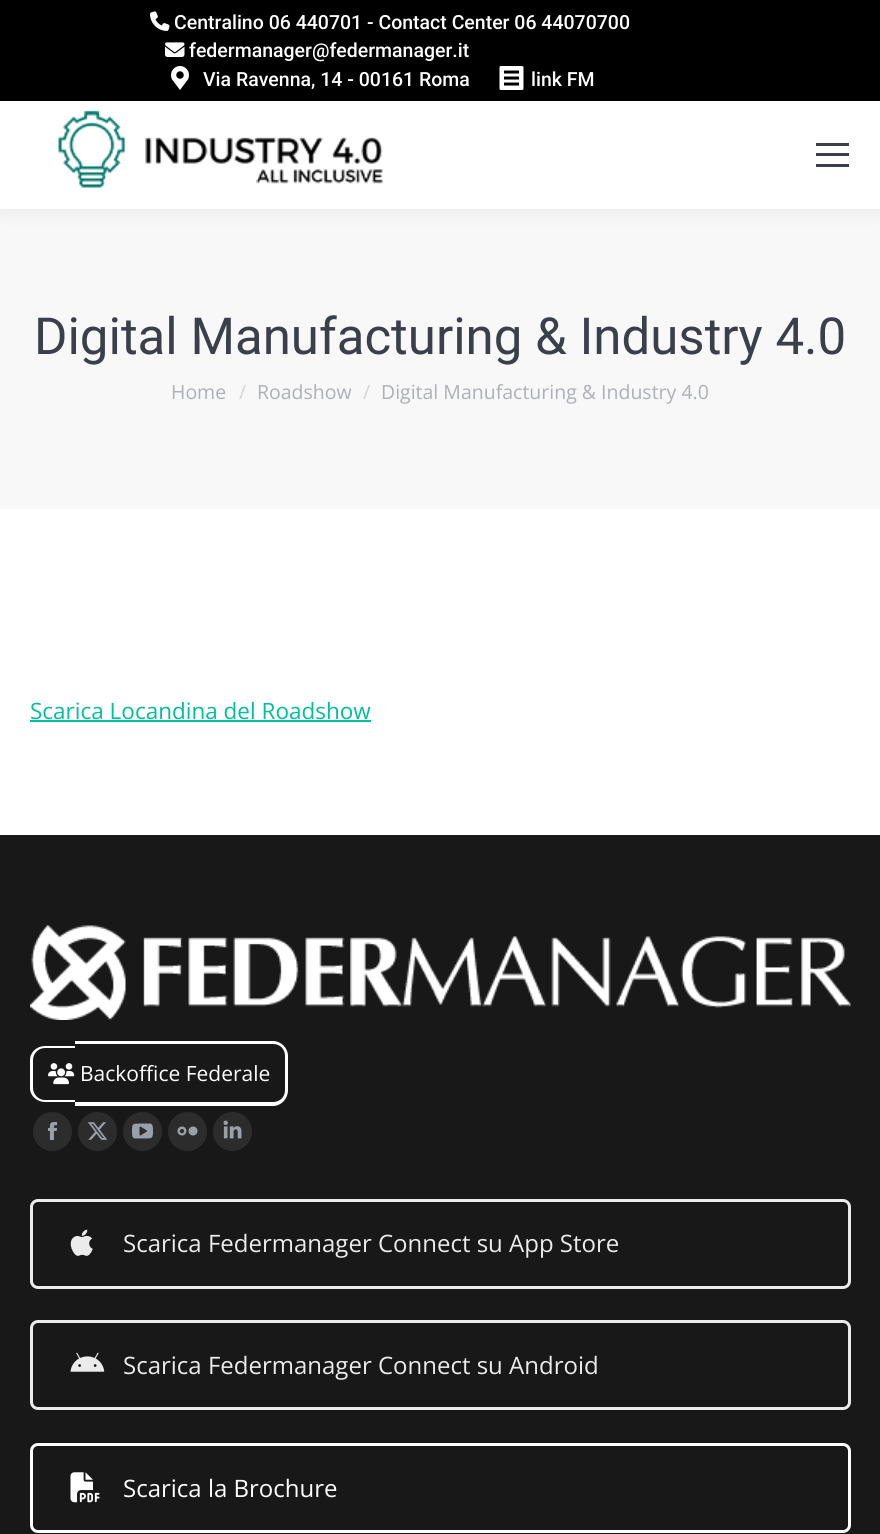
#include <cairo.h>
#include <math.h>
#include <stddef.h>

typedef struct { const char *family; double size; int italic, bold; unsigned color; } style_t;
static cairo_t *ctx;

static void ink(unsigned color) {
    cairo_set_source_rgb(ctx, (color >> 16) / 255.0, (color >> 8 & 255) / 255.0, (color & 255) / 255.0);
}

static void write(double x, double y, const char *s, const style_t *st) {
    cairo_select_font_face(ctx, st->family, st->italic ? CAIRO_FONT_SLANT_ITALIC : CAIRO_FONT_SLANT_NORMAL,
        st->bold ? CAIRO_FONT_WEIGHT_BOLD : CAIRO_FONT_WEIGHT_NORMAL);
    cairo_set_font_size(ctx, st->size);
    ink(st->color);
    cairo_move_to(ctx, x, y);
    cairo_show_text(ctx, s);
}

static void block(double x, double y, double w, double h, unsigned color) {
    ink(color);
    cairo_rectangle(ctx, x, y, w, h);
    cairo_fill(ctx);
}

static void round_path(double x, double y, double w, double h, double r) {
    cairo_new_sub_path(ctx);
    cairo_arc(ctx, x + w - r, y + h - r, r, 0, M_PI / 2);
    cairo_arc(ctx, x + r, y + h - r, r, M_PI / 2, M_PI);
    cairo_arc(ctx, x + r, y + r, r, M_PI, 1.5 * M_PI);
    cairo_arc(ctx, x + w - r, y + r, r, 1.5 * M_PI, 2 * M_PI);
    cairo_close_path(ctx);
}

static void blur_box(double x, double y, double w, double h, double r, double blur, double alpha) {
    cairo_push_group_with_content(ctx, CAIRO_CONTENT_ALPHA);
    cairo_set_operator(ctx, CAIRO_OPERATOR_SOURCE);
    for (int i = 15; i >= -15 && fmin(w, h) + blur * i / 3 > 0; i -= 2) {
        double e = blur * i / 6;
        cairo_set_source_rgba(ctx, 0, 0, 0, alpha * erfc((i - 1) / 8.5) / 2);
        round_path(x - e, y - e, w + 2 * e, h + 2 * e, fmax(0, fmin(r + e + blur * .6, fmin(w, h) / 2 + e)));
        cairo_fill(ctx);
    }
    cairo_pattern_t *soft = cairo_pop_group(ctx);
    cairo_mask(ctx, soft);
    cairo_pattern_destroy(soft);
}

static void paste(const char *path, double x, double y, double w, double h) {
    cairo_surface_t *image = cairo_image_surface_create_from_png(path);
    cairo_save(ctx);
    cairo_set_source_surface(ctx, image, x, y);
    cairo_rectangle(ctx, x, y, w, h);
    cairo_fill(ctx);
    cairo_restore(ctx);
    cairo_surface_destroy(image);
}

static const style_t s1 = {"Roboto Medium", 19.5, 0, 0, 0xffffff};
static const style_t s2 = {"Roboto", 51, 0, 0, 0x3b3f4a};
static const style_t s3 = {"Open Sans", 19.5, 0, 0, 0xadb0b6};
static const style_t s4 = {"Open Sans", 19.5, 0, 0, 0xd3d4d8};
static const style_t s5 = {"Open Sans", 22.5, 0, 0, 0x01be9d};
static const style_t s6 = {"Open Sans", 21, 0, 0, 0xffffff};
static const style_t s7 = {"Open Sans", 24, 0, 0, 0xebebeb};
static const style_t s8 = {"Open Sans", 24, 0, 0, 0xffffff};

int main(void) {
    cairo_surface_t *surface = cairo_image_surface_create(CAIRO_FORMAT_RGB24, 880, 1534);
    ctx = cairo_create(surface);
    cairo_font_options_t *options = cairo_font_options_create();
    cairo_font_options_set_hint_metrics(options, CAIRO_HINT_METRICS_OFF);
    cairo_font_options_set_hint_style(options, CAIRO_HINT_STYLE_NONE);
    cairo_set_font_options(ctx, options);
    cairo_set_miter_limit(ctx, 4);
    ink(0xffffff);
    cairo_paint(ctx);
    block(0, 209, 880, 300, 0xf8f8f9);
    ink(0x000000);
    blur_box(-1, -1, 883, 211, 0, 11, 0.07);
    block(0, 101, 880, 108, 0xffffff);
    block(0, 0, 880, 101, 0x000000);
    paste("pic1.png", 150, 11, 20, 20);
    write(174, 29, "Centralino 06 440701 - Contact Center 06 44070700", &s1);
    paste("pic2.png", 165, 42, 20, 15);
    write(189, 57, "federmanager@federmanager.it", &s1);
    paste("pic3.png", 171, 66, 18, 24);
    write(203, 86, "Via Ravenna, 14 - 00161 Roma", &s1);
    paste("pic4.png", 499, 66, 25, 24);
    write(531, 86, "link FM", &s1);
    paste("pic5.png", 58, 110, 325, 78);
    block(816, 143, 33, 3, 0x3b3f4a);
    block(816, 153, 33, 3, 0x3b3f4a);
    block(816, 164, 33, 3, 0x3b3f4a);
    write(34, 354, "Digital Manufacturing & Industry 4.0", &s2);
    write(171, 399, "Home", &s3);
    write(239, 399, "/", &s4);
    write(257, 399, "Roadshow", &s3);
    write(363, 399, "/", &s4);
    write(381, 399, "Digital Manufacturing & Industry 4.0", &s3);
    write(30, 719, "Scarica Locandina del Roadshow", &s5);
    block(30, 720, 341, 2, 0x01be9d);
    block(0, 835, 880, 699, 0x181818);
    paste("pic6.png", 30, 925, 821, 95);
    ink(0xffffff);
    cairo_set_fill_rule(ctx, CAIRO_FILL_RULE_EVEN_ODD);
    cairo_new_path(ctx);
    cairo_move_to(ctx, 45, 1046);
    cairo_line_to(ctx, 75, 1046);
    cairo_line_to(ctx, 75, 1102);
    cairo_line_to(ctx, 45, 1102);
    cairo_curve_to(ctx, 37, 1102, 30, 1096, 30, 1088);
    cairo_line_to(ctx, 30, 1060);
    cairo_curve_to(ctx, 30, 1052, 37, 1046, 45, 1046);
    cairo_close_path(ctx);
    cairo_move_to(ctx, 45, 1048);
    cairo_line_to(ctx, 75, 1048);
    cairo_line_to(ctx, 75, 1100);
    cairo_line_to(ctx, 45, 1100);
    cairo_curve_to(ctx, 38, 1100, 33, 1094, 33, 1088);
    cairo_line_to(ctx, 33, 1060);
    cairo_curve_to(ctx, 33, 1054, 38, 1048, 45, 1048);
    cairo_close_path(ctx);
    cairo_fill(ctx);
    cairo_new_path(ctx);
    cairo_move_to(ctx, 75, 1041);
    cairo_line_to(ctx, 273, 1041);
    cairo_curve_to(ctx, 281, 1041, 288, 1048, 288, 1056);
    cairo_line_to(ctx, 288, 1090);
    cairo_curve_to(ctx, 288, 1099, 281, 1106, 273, 1106);
    cairo_line_to(ctx, 75, 1106);
    cairo_close_path(ctx);
    cairo_move_to(ctx, 75, 1044);
    cairo_line_to(ctx, 273, 1044);
    cairo_curve_to(ctx, 280, 1044, 285, 1049, 285, 1056);
    cairo_line_to(ctx, 285, 1090);
    cairo_curve_to(ctx, 285, 1097, 280, 1102, 273, 1102);
    cairo_line_to(ctx, 75, 1102);
    cairo_close_path(ctx);
    cairo_fill(ctx);
    paste("pic7.png", 48, 1063, 27, 22);
    write(80, 1081, "Backoffice Federale", &s6);
    ink(0x2c2c2d);
    cairo_new_path(ctx);
    cairo_arc(ctx, 52.5, 1131.5, 19.5, 0, 2 * M_PI);
    cairo_fill(ctx);
    paste("pic8.png", 48, 1122, 9, 18);
    cairo_arc(ctx, 97.5, 1131.5, 19.5, 0, 2 * M_PI);
    cairo_fill(ctx);
    paste("pic9.png", 88, 1122, 20, 18);
    cairo_arc(ctx, 142.5, 1131.5, 19.5, 0, 2 * M_PI);
    cairo_fill(ctx);
    paste("pic10.png", 132, 1123, 21, 16);
    cairo_arc(ctx, 187.5, 1131.5, 19.5, 0, 2 * M_PI);
    cairo_fill(ctx);
    paste("pic11.png", 177, 1126, 21, 10);
    cairo_arc(ctx, 232.5, 1131.5, 19.5, 0, 2 * M_PI);
    cairo_fill(ctx);
    paste("pic12.png", 223, 1120, 19, 19);
    round_path(31.5, 1200.5, 818, 87, 6.5);
    ink(0xebebeb);
    cairo_set_line_width(ctx, 3);
    cairo_stroke(ctx);
    paste("pic13.png", 70, 1229, 23, 27);
    write(123, 1252, "Scarica Federmanager Connect su App Store", &s7);
    round_path(31.5, 1321.5, 818, 87, 6.5);
    cairo_stroke(ctx);
    paste("pic14.png", 70, 1352, 35, 20);
    write(123, 1374, "Scarica Federmanager Connect su Android", &s7);
    round_path(31.5, 1444.5, 818, 87, 6.5);
    ink(0xffffff);
    cairo_stroke(ctx);
    paste("pic15.png", 70, 1472, 30, 31);
    write(123, 1497, "Scarica la Brochure", &s8);
    cairo_surface_write_to_png(surface, "screenshot.png");
    cairo_font_options_destroy(options);
    cairo_destroy(ctx);
    cairo_surface_destroy(surface);
    return 0;
}
